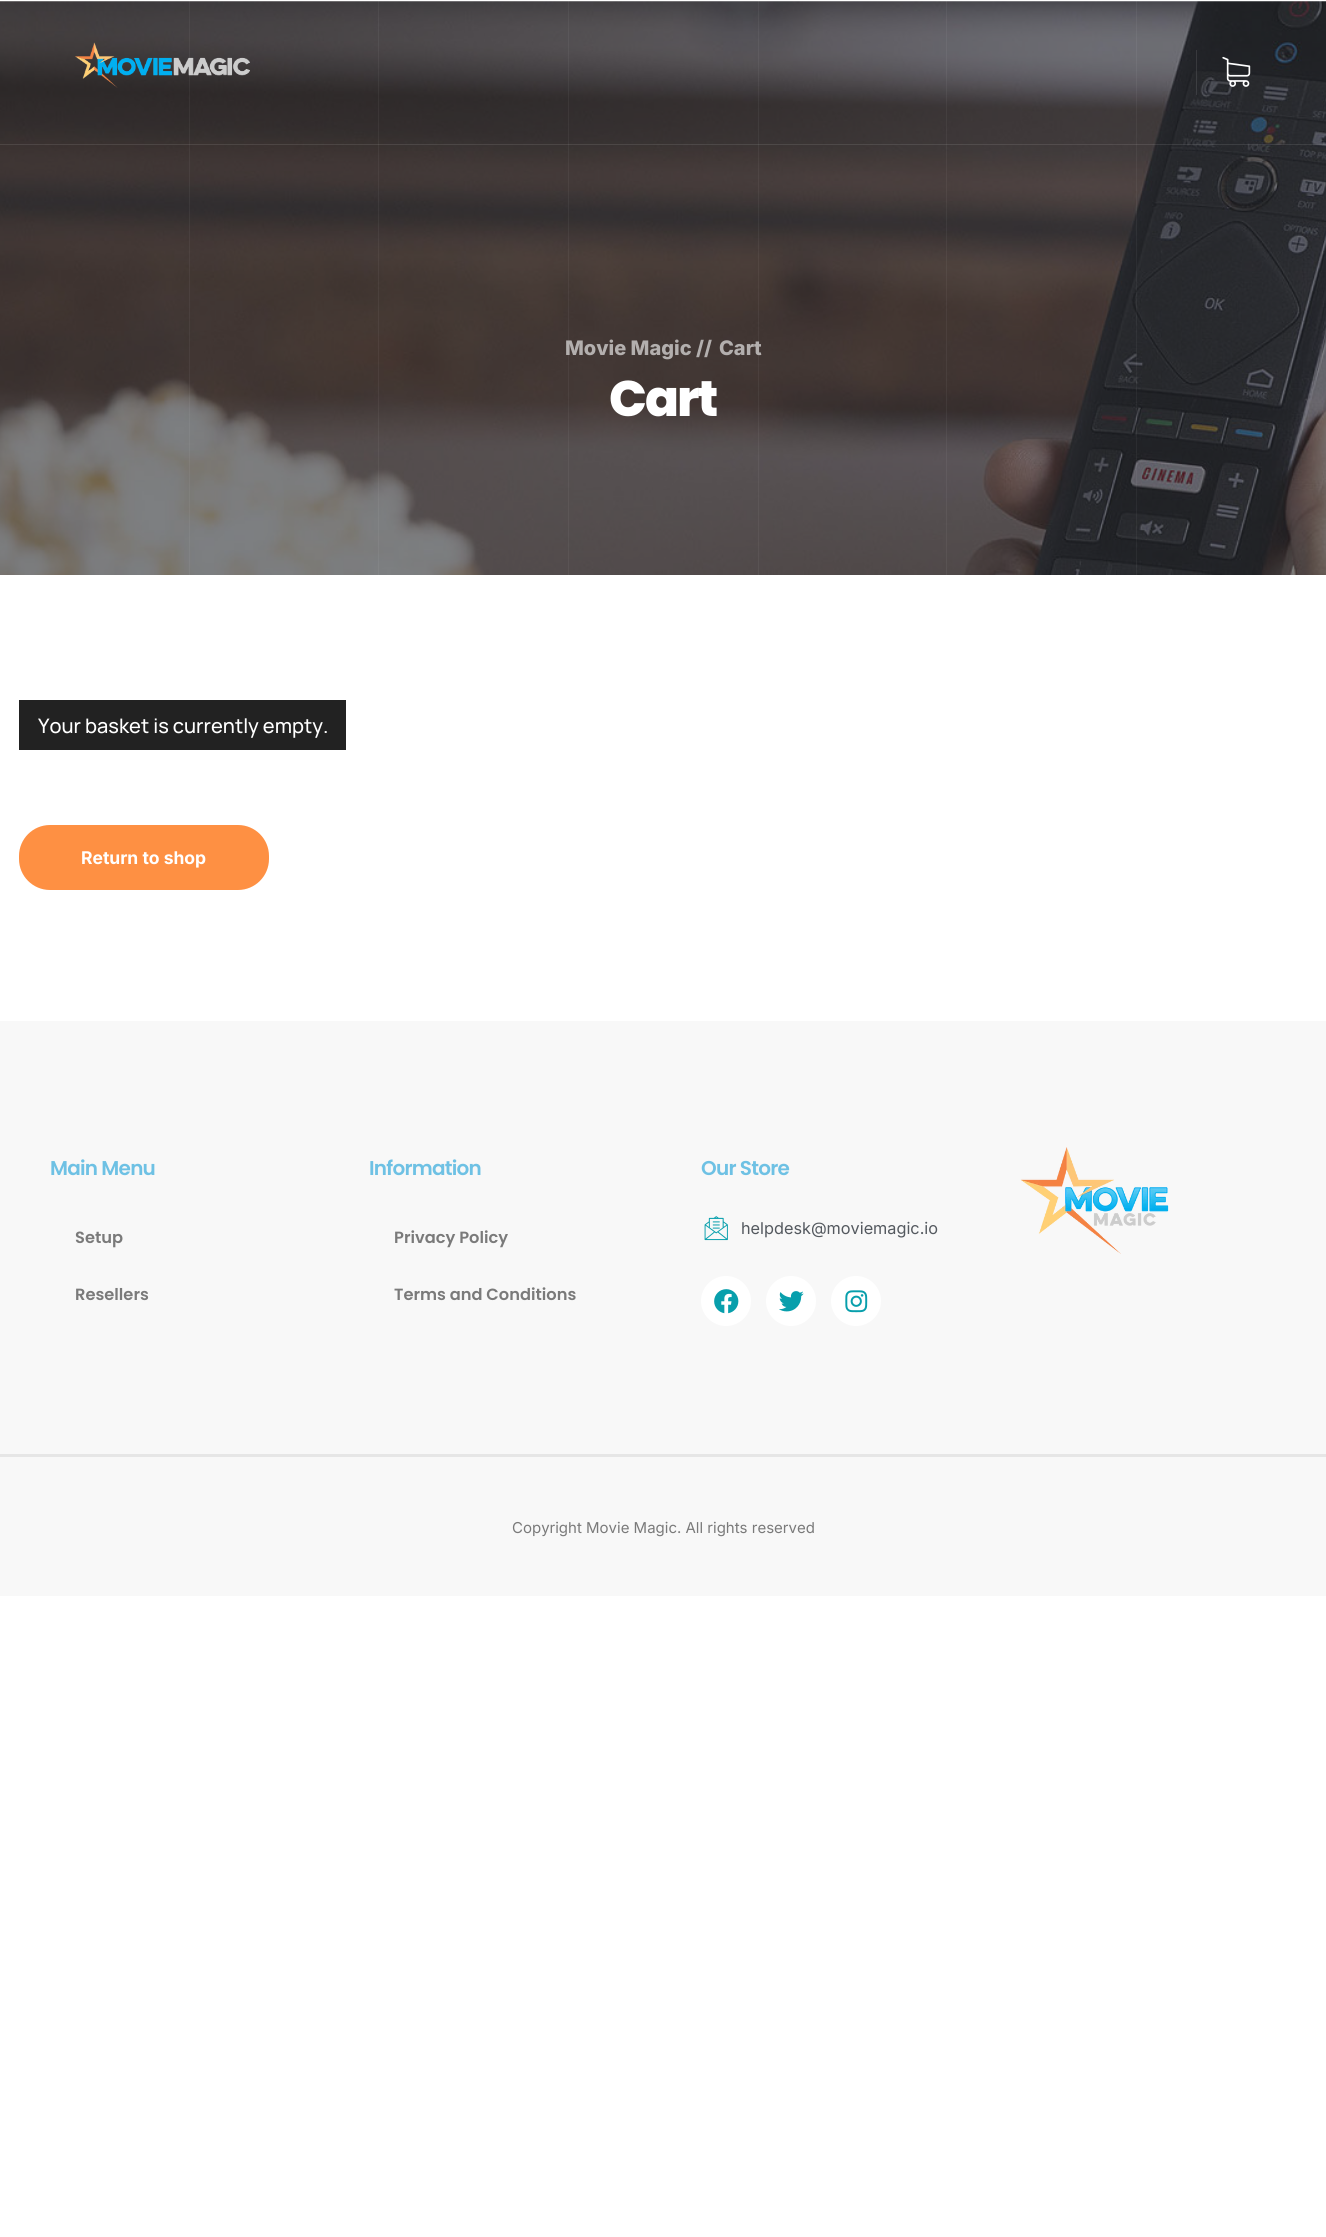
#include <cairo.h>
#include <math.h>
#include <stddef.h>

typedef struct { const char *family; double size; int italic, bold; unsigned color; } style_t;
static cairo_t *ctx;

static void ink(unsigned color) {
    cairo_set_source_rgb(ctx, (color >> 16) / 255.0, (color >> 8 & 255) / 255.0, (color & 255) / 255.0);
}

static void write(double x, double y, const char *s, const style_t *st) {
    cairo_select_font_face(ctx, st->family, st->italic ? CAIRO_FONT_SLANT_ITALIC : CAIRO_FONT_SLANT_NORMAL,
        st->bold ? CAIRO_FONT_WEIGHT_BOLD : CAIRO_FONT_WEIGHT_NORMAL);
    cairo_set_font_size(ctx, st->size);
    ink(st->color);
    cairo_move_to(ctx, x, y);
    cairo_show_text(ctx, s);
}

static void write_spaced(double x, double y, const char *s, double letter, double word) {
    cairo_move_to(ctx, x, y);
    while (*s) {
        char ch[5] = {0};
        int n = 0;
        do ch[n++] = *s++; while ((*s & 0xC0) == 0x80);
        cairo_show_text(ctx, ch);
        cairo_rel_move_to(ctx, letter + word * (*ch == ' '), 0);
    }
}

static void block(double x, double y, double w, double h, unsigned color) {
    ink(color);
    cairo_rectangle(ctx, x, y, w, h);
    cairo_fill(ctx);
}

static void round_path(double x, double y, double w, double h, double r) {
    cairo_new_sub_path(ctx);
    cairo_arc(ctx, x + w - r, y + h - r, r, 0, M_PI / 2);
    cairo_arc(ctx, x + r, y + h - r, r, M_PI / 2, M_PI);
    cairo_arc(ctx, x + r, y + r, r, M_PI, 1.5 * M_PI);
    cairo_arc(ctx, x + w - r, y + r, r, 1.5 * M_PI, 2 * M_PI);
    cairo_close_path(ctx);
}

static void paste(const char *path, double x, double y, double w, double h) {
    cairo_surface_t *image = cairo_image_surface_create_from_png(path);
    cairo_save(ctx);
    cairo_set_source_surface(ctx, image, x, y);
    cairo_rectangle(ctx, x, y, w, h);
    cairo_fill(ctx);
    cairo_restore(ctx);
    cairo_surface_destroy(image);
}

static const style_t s1 = {"Inter ExtraBold", 20, 0, 0, 0xb3afae};
static const style_t s2 = {"Manrope Medium", 20, 0, 0, 0xffffff};
static const style_t s3 = {"Inter", 17.5, 0, 1, 0xffffff};
static const style_t s4 = {"Poppins SemiBold", 16.25, 0, 0, 0x7a7a7a};
static const style_t s5 = {"Inter", 16.25, 0, 0, 0x54595f};
static const style_t s6 = {"Inter", 15, 0, 0, 0x7a7a7a};

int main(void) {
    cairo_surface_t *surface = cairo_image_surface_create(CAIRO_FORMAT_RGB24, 1326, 2237);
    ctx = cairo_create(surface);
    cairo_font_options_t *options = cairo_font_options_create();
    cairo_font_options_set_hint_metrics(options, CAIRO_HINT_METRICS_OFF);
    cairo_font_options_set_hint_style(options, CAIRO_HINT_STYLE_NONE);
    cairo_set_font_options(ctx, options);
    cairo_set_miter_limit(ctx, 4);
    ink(0xffffff);
    cairo_paint(ctx);
    paste("pic3.png", 0, 1, 1326, 574);
    cairo_set_source_rgba(ctx, 1, 1, 1, 0.05);
    cairo_rectangle(ctx, 189, 1, 1, 574);
    cairo_fill(ctx);
    paste("pic1.png", 75, 42, 175, 46);
    cairo_set_source_rgba(ctx, 1, 1, 1, 0.1);
    cairo_rectangle(ctx, 1196, 50, 1, 45);
    cairo_fill(ctx);
    paste("pic2.png", 1222, 56, 29, 31);
    cairo_set_source_rgba(ctx, 1, 1, 1, 0.05);
    cairo_rectangle(ctx, 378, 1, 1, 574);
    cairo_fill(ctx);
    cairo_rectangle(ctx, 568, 1, 1, 574);
    cairo_fill(ctx);
    cairo_rectangle(ctx, 758, 1, 1, 574);
    cairo_fill(ctx);
    cairo_rectangle(ctx, 946, 1, 1, 574);
    cairo_fill(ctx);
    cairo_rectangle(ctx, 1136, 1, 1, 574);
    cairo_fill(ctx);
    cairo_set_source_rgba(ctx, 1, 1, 1, 0.1);
    cairo_rectangle(ctx, 0, 144, 1326, 1);
    cairo_fill(ctx);
    write(565, 355, "Movie Magic", &s1);
    write(696, 355, "//", &s1);
    write(719, 355, "Cart", &s1);
    cairo_select_font_face(ctx, "Poppins ExtraBold", CAIRO_FONT_SLANT_NORMAL, CAIRO_FONT_WEIGHT_NORMAL);
    cairo_set_font_size(ctx, 50);
    ink(0xffffff);
    write_spaced(609, 416, "Cart", -2, 0);
    block(19, 700, 327, 50, 0x222222);
    write(38, 733, "Your basket is currently empty.", &s2);
    ink(0xfe9043);
    round_path(19, 825, 250, 65, 31);
    cairo_fill(ctx);
    write(81, 864, "Return to shop", &s3);
    block(0, 1021, 1326, 575, 0xf8f8f8);
    cairo_select_font_face(ctx, "Poppins SemiBold", CAIRO_FONT_SLANT_NORMAL, CAIRO_FONT_WEIGHT_NORMAL);
    cairo_set_font_size(ctx, 20);
    ink(0x6ec1e4);
    write_spaced(50, 1175, "Main Menu", -0.75, 0);
    write(75, 1243, "Setup", &s4);
    write(75, 1300, "Resellers", &s4);
    cairo_set_font_size(ctx, 20);
    ink(0x6ec1e4);
    write_spaced(369, 1175, "Information", -0.75, 0);
    write(394, 1243, "Privacy Policy", &s4);
    write(394, 1300, "Terms and Conditions", &s4);
    cairo_set_font_size(ctx, 20);
    ink(0x6ec1e4);
    write_spaced(701, 1175, "Our Store", -0.75, 0);
    paste("pic4.png", 704, 1216, 24, 25);
    write(741, 1234, "helpdesk@moviemagic.io", &s5);
    ink(0xffffff);
    cairo_new_path(ctx);
    cairo_arc(ctx, 726, 1301, 25, 0, 2 * M_PI);
    cairo_fill(ctx);
    paste("pic5.png", 714, 1289, 25, 25);
    cairo_arc(ctx, 791, 1301, 25, 0, 2 * M_PI);
    cairo_fill(ctx);
    paste("pic6.png", 779, 1291, 25, 21);
    cairo_arc(ctx, 856, 1301, 25, 0, 2 * M_PI);
    cairo_fill(ctx);
    paste("pic7.png", 845, 1290, 23, 23);
    paste("pic8.png", 1020, 1147, 149, 107);
    block(0, 1454, 1326, 3, 0xe6e6e6);
    write(512, 1533, "Copyright Movie Magic. All rights reserved", &s6);
    cairo_surface_write_to_png(surface, "screenshot.png");
    cairo_font_options_destroy(options);
    cairo_destroy(ctx);
    cairo_surface_destroy(surface);
    return 0;
}
